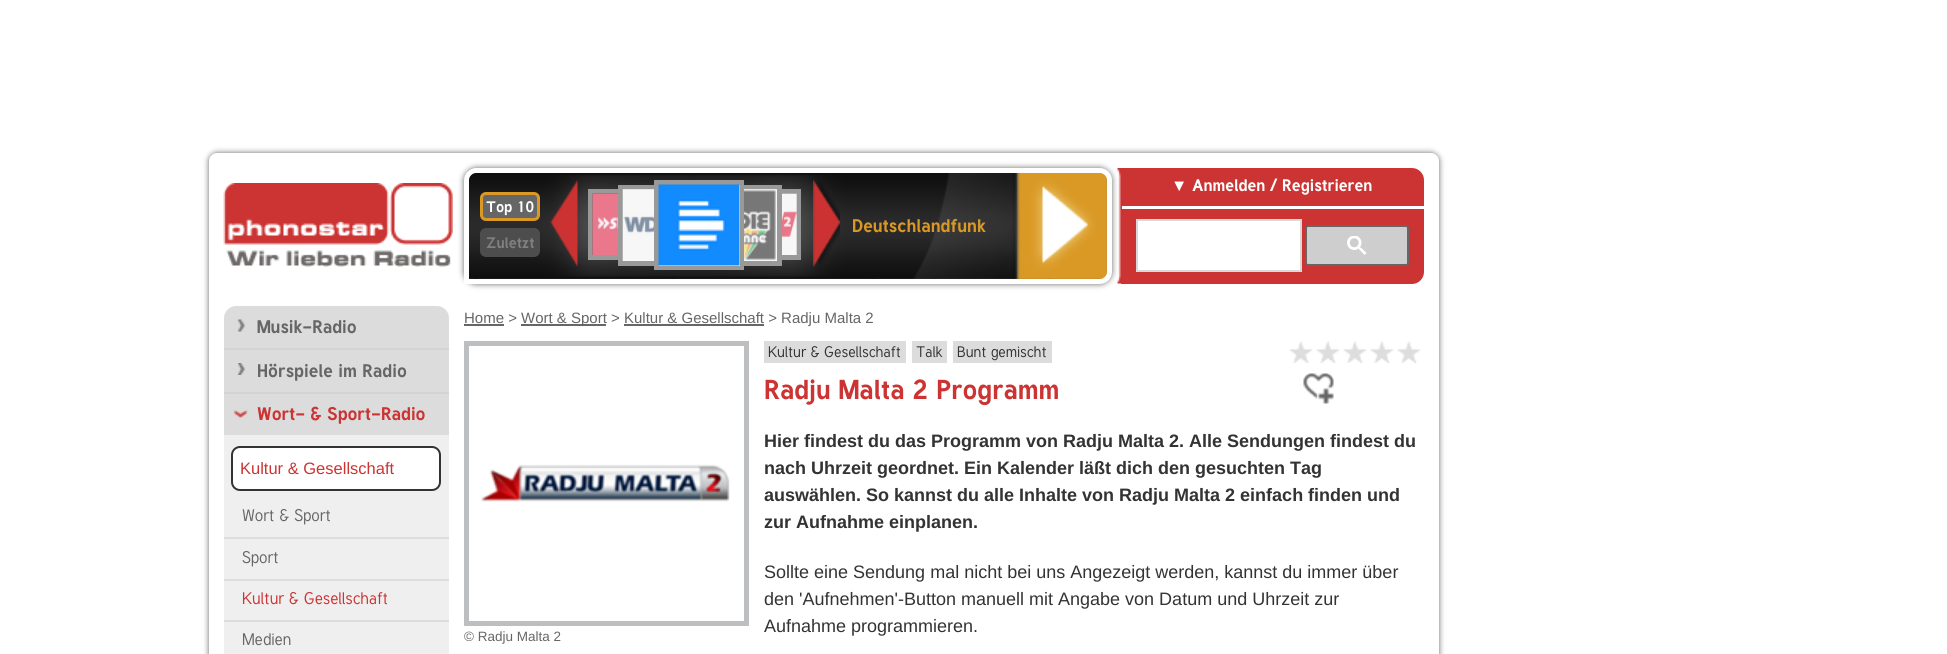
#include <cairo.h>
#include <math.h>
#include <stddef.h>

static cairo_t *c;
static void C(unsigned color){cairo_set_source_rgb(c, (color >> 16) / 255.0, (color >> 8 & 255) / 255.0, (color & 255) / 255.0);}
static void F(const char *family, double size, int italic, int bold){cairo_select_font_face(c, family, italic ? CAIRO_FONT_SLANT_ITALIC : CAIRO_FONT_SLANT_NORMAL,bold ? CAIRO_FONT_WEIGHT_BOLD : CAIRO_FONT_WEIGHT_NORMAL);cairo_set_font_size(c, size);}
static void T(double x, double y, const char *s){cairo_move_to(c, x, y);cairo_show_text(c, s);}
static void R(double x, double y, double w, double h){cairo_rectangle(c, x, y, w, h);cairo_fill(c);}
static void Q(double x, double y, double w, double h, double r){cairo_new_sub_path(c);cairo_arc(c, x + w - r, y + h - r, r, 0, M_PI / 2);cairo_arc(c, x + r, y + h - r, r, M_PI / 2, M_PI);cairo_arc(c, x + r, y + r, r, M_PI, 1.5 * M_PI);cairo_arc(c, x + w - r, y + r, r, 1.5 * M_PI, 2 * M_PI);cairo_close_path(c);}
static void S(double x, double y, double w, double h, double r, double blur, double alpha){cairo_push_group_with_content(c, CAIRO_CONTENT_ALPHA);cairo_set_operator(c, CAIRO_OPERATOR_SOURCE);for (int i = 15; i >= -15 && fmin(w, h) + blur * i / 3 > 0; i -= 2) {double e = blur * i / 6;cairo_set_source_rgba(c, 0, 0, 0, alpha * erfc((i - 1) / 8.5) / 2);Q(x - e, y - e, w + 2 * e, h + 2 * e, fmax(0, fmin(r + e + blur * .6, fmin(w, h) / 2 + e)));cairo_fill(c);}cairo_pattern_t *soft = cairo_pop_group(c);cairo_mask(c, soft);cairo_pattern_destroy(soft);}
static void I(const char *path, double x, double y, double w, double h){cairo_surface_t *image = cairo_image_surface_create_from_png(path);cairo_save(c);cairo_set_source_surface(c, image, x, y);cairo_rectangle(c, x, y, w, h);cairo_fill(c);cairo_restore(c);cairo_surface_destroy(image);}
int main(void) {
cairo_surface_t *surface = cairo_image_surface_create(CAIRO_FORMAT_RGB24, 1947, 654);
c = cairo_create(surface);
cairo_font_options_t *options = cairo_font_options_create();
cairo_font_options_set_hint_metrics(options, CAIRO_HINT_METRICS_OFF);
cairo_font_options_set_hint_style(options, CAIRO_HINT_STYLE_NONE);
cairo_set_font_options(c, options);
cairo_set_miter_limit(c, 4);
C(0xffffff);
cairo_paint(c);
C(0x666666);
S(209,153,1230,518,8,3,1);
C(0xffffff);
Q(209,153,1230,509,8);
cairo_fill(c);
I("1.png",223,183,230,84);
C(0x666666);
S(464,168,648,116,12,3,1);
I("2.png",468,168,639,111);
cairo_new_path(c);
cairo_move_to(c,476,170.5);
cairo_line_to(c,1100,170.5);
cairo_curve_to(c,1105,170.5,1109.5,175,1109.5,180);
cairo_line_to(c,1109.5,272);
cairo_curve_to(c,1109.5,277,1105,281.5,1100,281.5);
cairo_line_to(c,466.5,281.5);
cairo_line_to(c,466.5,180);
cairo_curve_to(c,466.5,175,471,170.5,476,170.5);
cairo_close_path(c);
C(0xffffff);
cairo_set_line_width(c,5);
cairo_stroke(c);
C(0x666666);
Q(481.5,193.5,57,26,4.5);
cairo_fill_preserve(c);
C(0xda9925);
cairo_set_line_width(c,3);
cairo_stroke(c);
F("Tuffy",15,0,1);
C(0xffffff);
T(486,212,"Top 10");
C(0x4d4d4d);
Q(481.5,229.5,57,26,4.5);
cairo_fill_preserve(c);
cairo_stroke(c);
C(0x808080);
T(486,248,"Zuletzt");
I("3.png",550,180,28,87);
cairo_rectangle(c,590.5,191.5,66,66);
C(0x999999);
cairo_set_line_width(c,5);
cairo_stroke(c);
C(0xdcdcdc);
R(623,190,31,71);
cairo_rectangle(c,620.5,187.5,76,76);
C(0x999999);
cairo_stroke(c);
C(0xdcdcdc);
R(782,194,14,61);
cairo_rectangle(c,733.5,191.5,65,66);
C(0x999999);
cairo_stroke(c);
C(0xdcdcdc);
R(744,190,33,71);
cairo_rectangle(c,703.5,187.5,76,76);
C(0x999999);
cairo_stroke(c);
cairo_rectangle(c,656.5,182.5,85,85);
cairo_stroke(c);
C(0xffffff);
R(659,185,81,81);
I("4.png",658,184,82,82);
cairo_set_source_rgba(c,1,1,1,0.5);
R(623,189,31,72);
I("5.png",622,189,32,72);
R(744,189,33,72);
I("6.png",744,189,33,72);
C(0xeeeeee);
R(593,194,25,61);
I("7.png",592,193,26,62);
cairo_set_source_rgba(c,1,1,1,0.5);
R(782,194,15,61);
I("8.png",782,193,15,62);
I("9.png",813,180,27,88);
F("Tuffy",18,0,1);
C(0xda9925);
T(852,232,"Deutschlandfunk");
C(0xcc3333);
cairo_new_path(c);
cairo_move_to(c,1121,168);
cairo_line_to(c,1412,168);
cairo_curve_to(c,1418.5,168,1424,173.5,1424,180);
cairo_line_to(c,1424,272);
cairo_curve_to(c,1424,278.5,1418.5,284,1412,284);
cairo_line_to(c,1121,284);
cairo_close_path(c);
cairo_fill(c);
C(0xffffff);
R(1121,206,303,3);
I("10.png",1117,168,5,116);
F("Liberation Sans",16.5,0,0);
T(1171,191,"▼");
F("Tuffy",16.5,0,1);
T(1192,191,"Anmelden / Registrieren");
cairo_rectangle(c,1137,220,164,51);
cairo_fill_preserve(c);
C(0xd9d9d9);
cairo_set_line_width(c,2);
cairo_stroke(c);
C(0xcecece);
Q(1306,226,102,39,2);
cairo_fill_preserve(c);
C(0x666666);
cairo_stroke(c);
I("11.png",1347,236,20,19);
C(0xdcdcdc);
cairo_new_path(c);
cairo_move_to(c,236,306);
cairo_line_to(c,437,306);
cairo_curve_to(c,443.5,306,449,311.5,449,318);
cairo_line_to(c,449,654);
cairo_curve_to(c,449,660.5,443.5,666,437,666);
cairo_line_to(c,224,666);
cairo_line_to(c,224,318);
cairo_curve_to(c,224,311.5,229.5,306,236,306);
cairo_close_path(c);
cairo_fill(c);
C(0xd3d3d3);
R(224,348,225,2);
I("12.png",237,319,8,13);
F("Tuffy",18,0,1);
C(0x666666);
T(257,333,"Musik-Radio");
C(0xd3d3d3);
R(224,392,225,2);
I("13.png",237,363,8,12);
C(0x666666);
T(257,377,"Hörspiele im Radio");
I("14.png",234,409,14,10);
C(0xcc3333);
T(257,420,"Wort- & Sport-Radio");
C(0xefefef);
R(224,435,225,219);
C(0xdcdcdc);
R(224,537,225,2);
C(0xffffff);
Q(232,447,208,43,8);
cairo_fill_preserve(c);
C(0x333333);
cairo_stroke(c);
F("Liberation Sans",16.5,0,0);
C(0xcc3333);
T(240,474,"Kultur & Gesellschaft");
F("Tuffy",16.5,0,0);
C(0x666666);
T(242,521,"Wort & Sport");
C(0xdcdcdc);
R(224,579,225,2);
C(0x666666);
T(242,563,"Sport");
C(0xdcdcdc);
R(224,620,225,2);
C(0xcc3333);
T(242,604,"Kultur & Gesellschaft");
C(0x666666);
T(242,645,"Medien");
F("Liberation Sans",15,0,0);
T(464,323,"Home >");
R(464,324,40,2);
R(521,324,85,2);
T(521,323,"Wort & Sport > Kultur & Gesellschaft > Radju Malta 2");
R(624,324,140,2);
C(0xdcdcdc);
R(764,341,142,22);
F("Tuffy",15,0,0);
C(0x333333);
T(768,357,"Kultur & Gesellschaft");
C(0xdcdcdc);
R(912,341,35,22);
C(0x333333);
T(916,357,"Talk");
C(0xdcdcdc);
R(953,341,99,22);
C(0x333333);
T(957,357,"Bunt gemischt");
F("Tuffy",27,0,1);
C(0xcc3333);
T(764,399,"Radju Malta 2 Programm");
I("15.png",1289,341,24,22);
I("15.png",1316,341,24,22);
I("15.png",1343,341,24,22);
I("15.png",1370,341,24,22);
I("15.png",1397,341,24,22);
I("16.png",1303,373,31,31);
F("Liberation Sans",18,0,1);
C(0x333333);
T(764,447,"Hier findest du das Programm von Radju Malta 2. Alle Sendungen findest du");
T(764,474,"nach Uhrzeit geordnet. Ein Kalender läßt dich den gesuchten Tag");
T(764,501,"auswählen. So kannst du alle Inhalte von Radju Malta 2 einfach finden und");
T(764,528,"zur Aufnahme einplanen.");
F("Liberation Sans",18,0,0);
T(764,578,"Sollte eine Sendung mal nicht bei uns Angezeigt werden, kannst du immer über");
T(764,605,"den 'Aufnehmen'-Button manuell mit Angabe von Datum und Uhrzeit zur");
T(764,632,"Aufnahme programmieren.");
cairo_rectangle(c,466.5,343.5,280,280);
C(0xbcbec0);
cairo_set_line_width(c,5);
cairo_stroke(c);
I("17.png",481,464,249,38);
F("Liberation Sans",13.5,0,0);
C(0x666666);
T(464,641,"© Radju Malta 2");
cairo_surface_write_to_png(surface, "o.png");
cairo_font_options_destroy(options);
cairo_destroy(c);
cairo_surface_destroy(surface);
return 0;
}
